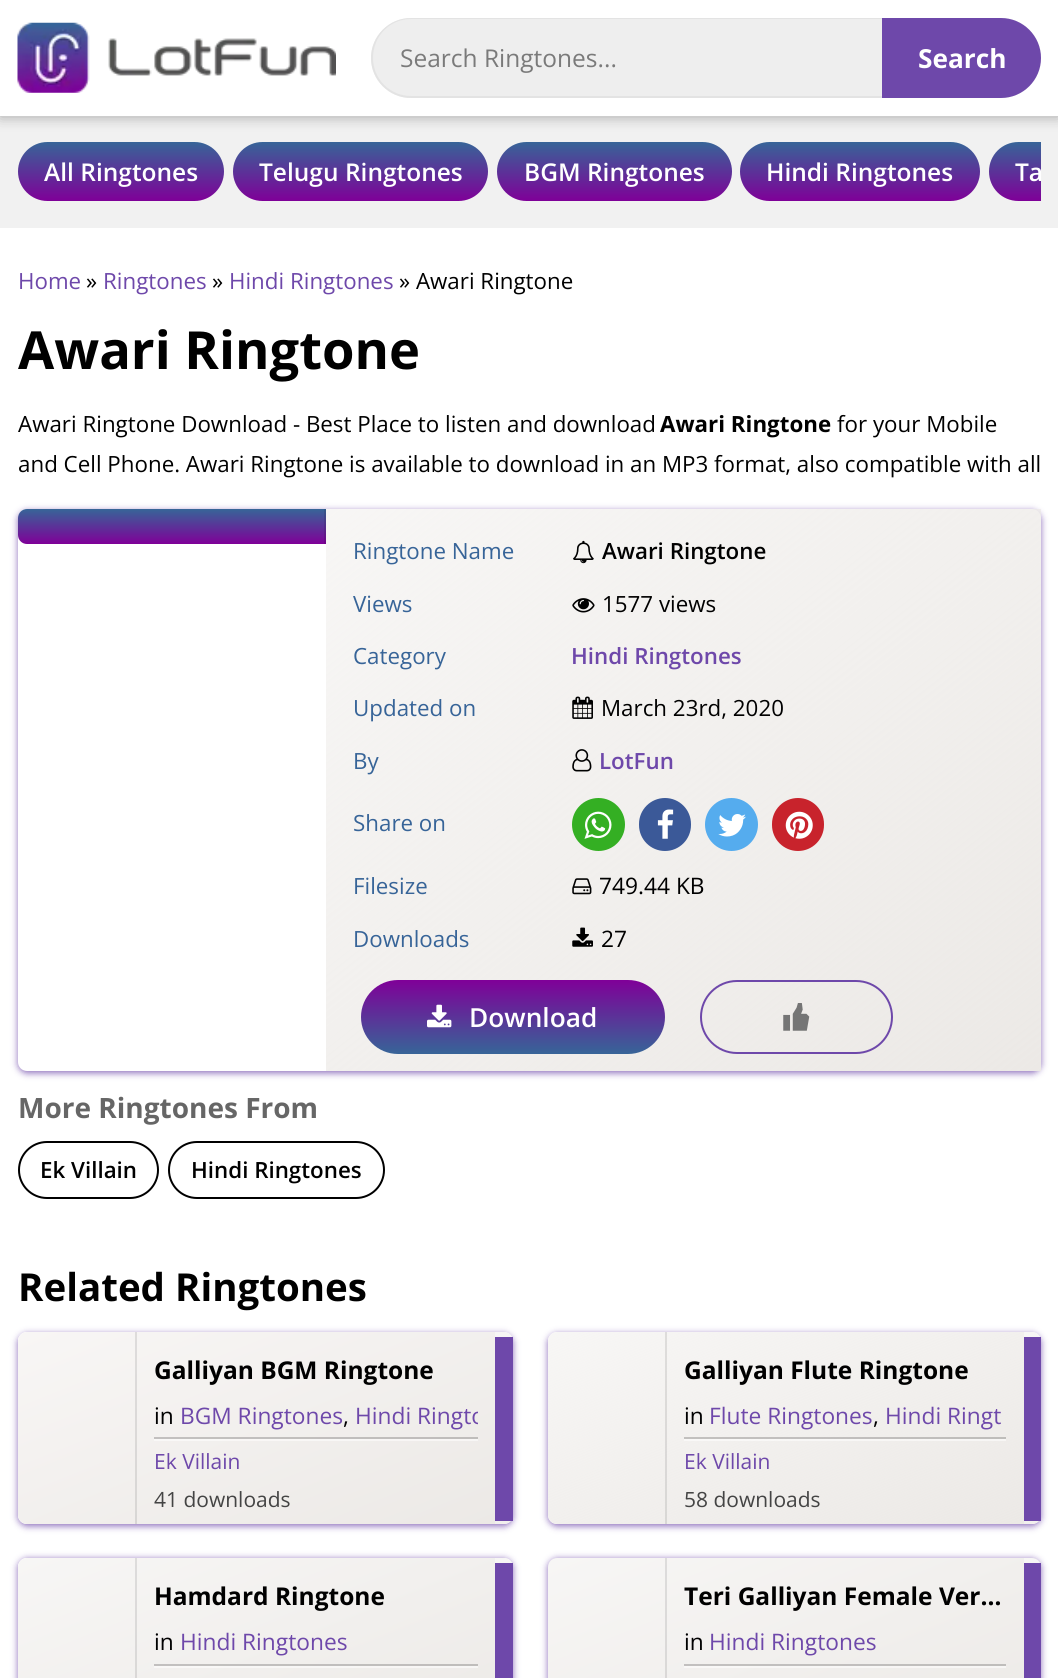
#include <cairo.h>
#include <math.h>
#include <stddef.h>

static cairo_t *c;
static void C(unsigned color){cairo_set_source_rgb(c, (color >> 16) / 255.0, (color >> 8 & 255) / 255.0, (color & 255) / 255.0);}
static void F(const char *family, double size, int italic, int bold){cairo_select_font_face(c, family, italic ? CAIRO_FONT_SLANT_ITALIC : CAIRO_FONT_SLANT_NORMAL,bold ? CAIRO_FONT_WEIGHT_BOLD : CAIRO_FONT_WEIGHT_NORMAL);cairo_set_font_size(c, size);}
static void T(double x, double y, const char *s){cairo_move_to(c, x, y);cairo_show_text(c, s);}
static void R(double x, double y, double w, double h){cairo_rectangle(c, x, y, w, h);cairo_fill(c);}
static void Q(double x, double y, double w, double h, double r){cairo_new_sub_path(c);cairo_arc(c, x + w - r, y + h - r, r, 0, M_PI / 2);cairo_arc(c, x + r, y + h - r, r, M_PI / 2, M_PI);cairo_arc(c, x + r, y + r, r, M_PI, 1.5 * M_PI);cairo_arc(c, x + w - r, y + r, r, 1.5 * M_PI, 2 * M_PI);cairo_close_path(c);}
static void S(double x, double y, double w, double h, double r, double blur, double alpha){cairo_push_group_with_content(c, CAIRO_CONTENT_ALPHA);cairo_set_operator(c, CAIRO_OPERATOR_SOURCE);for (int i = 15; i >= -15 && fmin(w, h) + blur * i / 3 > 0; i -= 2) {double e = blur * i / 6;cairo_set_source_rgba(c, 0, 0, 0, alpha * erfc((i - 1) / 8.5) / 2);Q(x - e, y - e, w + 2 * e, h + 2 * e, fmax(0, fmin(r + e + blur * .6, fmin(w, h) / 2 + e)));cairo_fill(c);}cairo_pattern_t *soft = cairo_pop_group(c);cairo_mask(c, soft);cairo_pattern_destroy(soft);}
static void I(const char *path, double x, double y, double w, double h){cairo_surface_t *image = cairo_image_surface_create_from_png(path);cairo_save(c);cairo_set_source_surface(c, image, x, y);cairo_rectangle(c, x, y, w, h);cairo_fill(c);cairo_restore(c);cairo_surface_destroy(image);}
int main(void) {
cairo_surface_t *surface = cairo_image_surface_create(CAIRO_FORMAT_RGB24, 1058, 1678);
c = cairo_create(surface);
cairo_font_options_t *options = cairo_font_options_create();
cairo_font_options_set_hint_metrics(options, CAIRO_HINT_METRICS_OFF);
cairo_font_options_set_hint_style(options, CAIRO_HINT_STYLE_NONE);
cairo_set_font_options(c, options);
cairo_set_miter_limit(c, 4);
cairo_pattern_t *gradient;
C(0xffffff);
cairo_paint(c);
C(0xf1f1f1);
R(0,116,1058,112);
C(0x000000);
S(0,2,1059,115,0,7,.3);
C(0xffffff);
R(0,0,1058,116);
I("1.png",17,22,319,71);
C(0xeeeeee);
Q(371,18,670,80,40);
cairo_fill(c);
C(0xe3e3e3);
cairo_set_fill_rule(c,CAIRO_FILL_RULE_EVEN_ODD);
cairo_new_path(c);
cairo_move_to(c,411,18);
cairo_line_to(c,882,18);
cairo_line_to(c,882,98);
cairo_line_to(c,411,98);
cairo_curve_to(c,389,98,371,80,371,58);
cairo_curve_to(c,371,36,389,18,411,18);
cairo_close_path(c);
cairo_move_to(c,411,19);
cairo_line_to(c,882,19);
cairo_line_to(c,882,96);
cairo_line_to(c,411,96);
cairo_curve_to(c,390,96,373,79,373,58);
cairo_curve_to(c,373,36,390,19,411,19);
cairo_close_path(c);
cairo_fill(c);
F("Open Sans",24.5,0,0);
C(0x7a7a7a);
T(400,67,"Search Ringtones...");
C(0x6e48aa);
cairo_new_path(c);
cairo_move_to(c,882,18);
cairo_line_to(c,1001,18);
cairo_curve_to(c,1023,18,1041,36,1041,58);
cairo_curve_to(c,1041,80,1023,98,1001,98);
cairo_line_to(c,882,98);
cairo_close_path(c);
cairo_fill(c);
F("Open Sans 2",26.25,0,1);
C(0xffffff);
T(918,68,"Search");
gradient = cairo_pattern_create_linear(121,142,121,201);
cairo_pattern_add_color_stop_rgba(gradient,0,0.216,0.396,0.596,1);
cairo_pattern_add_color_stop_rgba(gradient,1,0.498,0,0.596,1);
cairo_set_source(c,gradient);
cairo_pattern_destroy(gradient);
Q(18,142,206,59,29.5);
cairo_fill(c);
F("Open Sans SemiBold",24.5,0,0);
C(0xffffff);
T(44,181,"All Ringtones");
gradient = cairo_pattern_create_linear(361,142,361,201);
cairo_pattern_add_color_stop_rgba(gradient,0,0.216,0.396,0.596,1);
cairo_pattern_add_color_stop_rgba(gradient,1,0.498,0,0.596,1);
cairo_set_source(c,gradient);
cairo_pattern_destroy(gradient);
Q(233,142,255,59,29.5);
cairo_fill(c);
C(0xffffff);
T(259,181,"Telugu Ringtones");
gradient = cairo_pattern_create_linear(614,142,614,201);
cairo_pattern_add_color_stop_rgba(gradient,0,0.216,0.396,0.596,1);
cairo_pattern_add_color_stop_rgba(gradient,1,0.498,0,0.596,1);
cairo_set_source(c,gradient);
cairo_pattern_destroy(gradient);
Q(497,142,235,59,29.5);
cairo_fill(c);
C(0xffffff);
T(524,181,"BGM Ringtones");
gradient = cairo_pattern_create_linear(860,142,860,201);
cairo_pattern_add_color_stop_rgba(gradient,0,0.216,0.396,0.596,1);
cairo_pattern_add_color_stop_rgba(gradient,1,0.498,0,0.596,1);
cairo_set_source(c,gradient);
cairo_pattern_destroy(gradient);
Q(740,142,240,59,29.5);
cairo_fill(c);
C(0xffffff);
T(766,181,"Hindi Ringtones");
gradient = cairo_pattern_create_linear(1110,142,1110,201);
cairo_pattern_add_color_stop_rgba(gradient,0,0.216,0.396,0.596,1);
cairo_pattern_add_color_stop_rgba(gradient,1,0.498,0,0.596,1);
cairo_set_source(c,gradient);
cairo_pattern_destroy(gradient);
cairo_new_path(c);
cairo_move_to(c,1018.5,142);
cairo_line_to(c,1041,142);
cairo_line_to(c,1041,201);
cairo_line_to(c,1018.5,201);
cairo_curve_to(c,1002,201,989,188,989,171.5);
cairo_curve_to(c,989,155,1002,142,1018.5,142);
cairo_close_path(c);
cairo_fill(c);
C(0xffffff);
T(1015,181,"Ta");
F("Open Sans",22.35,0,0);
C(0x6e48aa);
T(18,289,"Home");
C(0x000000);
T(86,289,"»");
C(0x6e48aa);
T(103,289,"Ringtones");
C(0x000000);
T(212,289,"»");
C(0x6e48aa);
T(229,289,"Hindi Ringtones");
C(0x000000);
T(399,289,"» Awari Ringtone");
F("Open Sans",52.5,0,1);
T(18,369,"Awari Ringtone");
F("Open Sans",22.35,0,0);
T(18,432,"Awari Ringtone Download - Best Place to listen and download");
F("Open Sans 2",22.35,0,1);
T(660,432,"Awari Ringtone");
F("Open Sans",22.35,0,0);
T(837,432,"for your Mobile");
T(18,472,"and Cell Phone. Awari Ringtone is available to download in an MP3 format, also compatible with all");
C(0x6e48aa);
S(18,511,1023,562,9,3.5,.8);
C(0xffffff);
Q(18,509,1023,562,9);
cairo_fill(c);
gradient = cairo_pattern_create_linear(171,509,171,544);
cairo_pattern_add_color_stop_rgba(gradient,0,0.216,0.396,0.596,1);
cairo_pattern_add_color_stop_rgba(gradient,1,0.498,0,0.596,1);
cairo_set_source(c,gradient);
cairo_pattern_destroy(gradient);
cairo_new_path(c);
cairo_move_to(c,27,509);
cairo_line_to(c,326,509);
cairo_line_to(c,326,544);
cairo_line_to(c,27,544);
cairo_curve_to(c,22,544,18,540,18,535);
cairo_line_to(c,18,518);
cairo_curve_to(c,18,513,22,509,27,509);
cairo_close_path(c);
cairo_fill(c);
cairo_set_source_rgba(c,0,0,0,0.1);
R(324,509,2,35);
gradient = cairo_pattern_create_linear(411,443,956,1138);
cairo_pattern_add_color_stop_rgba(gradient,0,0.925,0.914,0.902,.4);
cairo_pattern_add_color_stop_rgba(gradient,1,0.925,0.914,0.902,1);
cairo_set_source(c,gradient);
cairo_pattern_destroy(gradient);
R(326,509,715,562);
C(0x376498);
T(353,559,"Ringtone Name");
I("2.png",573,540,21,24);
F("Open Sans 2 SemiBold",22.35,0,0);
C(0x000000);
T(602,559,"Awari Ringtone");
F("Open Sans",22.35,0,0);
C(0x376498);
T(353,612,"Views");
I("3.png",572,598,23,15);
C(0x000000);
T(602,612,"1577 views");
C(0x376498);
T(353,664,"Category");
F("Open Sans SemiBold",22.35,0,0);
C(0x6e48aa);
T(571,664,"Hindi Ringtones");
F("Open Sans",22.35,0,0);
C(0x376498);
T(353,716,"Updated on");
I("4.png",572,696,21,23);
C(0x000000);
T(601,716,"March 23rd, 2020");
C(0x376498);
T(353,769,"By");
I("5.png",572,749,20,23);
F("Open Sans SemiBold",22.35,0,0);
C(0x6e48aa);
T(599,769,"LotFun");
F("Open Sans",22.35,0,0);
C(0x376498);
T(353,831,"Share on");
C(0x34af23);
cairo_new_path(c);
cairo_arc(c,598.5,824.5,26.5,0,2 * M_PI);
cairo_fill(c);
I("6.png",584,811,28,28);
C(0x3b5998);
Q(639,798,52,53,26);
cairo_fill(c);
I("7.png",657,809,17,30);
C(0x55acee);
cairo_arc(c,731.5,824.5,26.5,0,2 * M_PI);
cairo_fill(c);
I("8.png",718,814,28,23);
C(0xc8232c);
Q(772,798,52,53,26);
cairo_fill(c);
I("9.png",785,811,28,28);
C(0x376498);
T(353,894,"Filesize");
I("10.png",572,878,20,17);
F("Open Sans",22.75,0,0);
C(0x000000);
T(599,894,"749.44 KB");
F("Open Sans",22.35,0,0);
C(0x376498);
T(353,947,"Downloads");
I("11.png",572,927,21,20);
F("Open Sans",22.75,0,0);
C(0x000000);
T(601,947,"27");
gradient = cairo_pattern_create_linear(513,1054,513,980);
cairo_pattern_add_color_stop_rgba(gradient,0,0.216,0.396,0.596,1);
cairo_pattern_add_color_stop_rgba(gradient,1,0.498,0,0.596,1);
cairo_set_source(c,gradient);
cairo_pattern_destroy(gradient);
Q(361,980,304,74,37);
cairo_fill(c);
I("12.png",427,1004,25,24);
F("Open Sans 2 SemiBold",26.25,0,0);
C(0xffffff);
T(469,1027,"Download");
Q(701,981,191,72,36);
C(0x6e48aa);
cairo_stroke(c);
I("13.png",783,1003,27,28);
F("Open Sans",28,0,1);
C(0x666666);
T(18,1118,"More Ringtones From");
Q(19,1142,139,56,28);
C(0x000000);
cairo_stroke(c);
F("Open Sans SemiBold",22.35,0,0);
T(40,1178,"Ek Villain");
Q(169,1142,215,56,28);
cairo_stroke(c);
T(191,1178,"Hindi Ringtones");
F("Open Sans",38.5,0,1);
T(18,1301,"Related Ringtones");
cairo_save(c);
cairo_new_path(c);
cairo_move_to(c,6,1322);
cairo_line_to(c,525,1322);
cairo_line_to(c,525,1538);
cairo_line_to(c,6,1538);
cairo_close_path(c);
cairo_move_to(c,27,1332);
cairo_line_to(c,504,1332);
cairo_curve_to(c,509,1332,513,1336,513,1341);
cairo_line_to(c,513,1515);
cairo_curve_to(c,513,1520,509,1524,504,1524);
cairo_line_to(c,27,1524);
cairo_curve_to(c,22,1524,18,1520,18,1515);
cairo_line_to(c,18,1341);
cairo_curve_to(c,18,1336,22,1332,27,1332);
cairo_close_path(c);
cairo_clip(c);
C(0x6e48aa);
S(18,1334,495,192,9,3.5,.8);
cairo_restore(c);
gradient = cairo_pattern_create_linear(190,1262,323,1594);
cairo_pattern_add_color_stop_rgba(gradient,0,0.973,0.965,0.961,1);
cairo_pattern_add_color_stop_rgba(gradient,1,0.925,0.914,0.902,1);
cairo_set_source(c,gradient);
cairo_pattern_destroy(gradient);
cairo_new_path(c);
cairo_move_to(c,27,1332);
cairo_line_to(c,495,1332);
cairo_line_to(c,495,1524);
cairo_line_to(c,27,1524);
cairo_curve_to(c,22,1524,18,1520,18,1515);
cairo_line_to(c,18,1341);
cairo_curve_to(c,18,1336,22,1332,27,1332);
cairo_close_path(c);
cairo_fill(c);
gradient = cairo_pattern_create_linear(190,1262,323,1594);
cairo_pattern_add_color_stop_rgba(gradient,0,0.776,0.773,0.769,1);
cairo_pattern_add_color_stop_rgba(gradient,1,0.741,0.729,0.722,1);
cairo_set_source(c,gradient);
cairo_pattern_destroy(gradient);
R(154,1437,324,2);
gradient = cairo_pattern_create_linear(190,1262,323,1594);
cairo_pattern_add_color_stop_rgba(gradient,0,0.988,0.984,0.98,1);
cairo_pattern_add_color_stop_rgba(gradient,1,0.965,0.957,0.953,1);
cairo_set_source(c,gradient);
cairo_pattern_destroy(gradient);
R(154,1439,324,2);
gradient = cairo_pattern_create_linear(190,1262,323,1594);
cairo_pattern_add_color_stop_rgba(gradient,0,0.875,0.867,0.867,1);
cairo_pattern_add_color_stop_rgba(gradient,1,0.831,0.824,0.812,1);
cairo_set_source(c,gradient);
cairo_pattern_destroy(gradient);
R(135,1332,2,192);
gradient = cairo_pattern_create_linear(667,1262,801,1594);
cairo_pattern_add_color_stop_rgba(gradient,0,0.925,0.914,0.902,.4);
cairo_pattern_add_color_stop_rgba(gradient,1,0.925,0.914,0.902,1);
cairo_set_source(c,gradient);
cairo_pattern_destroy(gradient);
cairo_new_path(c);
cairo_move_to(c,495,1332);
cairo_line_to(c,504,1332);
cairo_curve_to(c,509,1332,513,1336,513,1341);
cairo_line_to(c,513,1515);
cairo_curve_to(c,513,1520,509,1524,504,1524);
cairo_line_to(c,495,1524);
cairo_close_path(c);
cairo_fill(c);
C(0x6e48aa);
R(495,1337,18,184);
F("Open Sans",24.5,0,1);
C(0x000000);
T(154,1379,"Galliyan BGM Ringtone");
F("Open Sans",22.75,0,0);
T(154,1424,"in");
C(0x6e48aa);
T(180,1424,"BGM Ringtones");
C(0x000000);
T(343,1424,",");
cairo_save(c);
cairo_set_fill_rule(c,CAIRO_FILL_RULE_WINDING);
cairo_rectangle(c,154,1400,324,33);
cairo_clip(c);
C(0x6e48aa);
T(355,1424,"Hindi Ringto");
cairo_restore(c);
F("Open Sans",21,0,0);
C(0x6e48aa);
T(154,1469,"Ek Villain");
C(0x444444);
T(154,1507,"41 downloads");
cairo_save(c);
cairo_new_path(c);
cairo_move_to(c,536,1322);
cairo_line_to(c,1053,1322);
cairo_line_to(c,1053,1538);
cairo_line_to(c,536,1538);
cairo_close_path(c);
cairo_move_to(c,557,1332);
cairo_line_to(c,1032,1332);
cairo_curve_to(c,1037,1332,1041,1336,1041,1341);
cairo_line_to(c,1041,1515);
cairo_curve_to(c,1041,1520,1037,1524,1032,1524);
cairo_line_to(c,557,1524);
cairo_curve_to(c,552,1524,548,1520,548,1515);
cairo_line_to(c,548,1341);
cairo_curve_to(c,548,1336,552,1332,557,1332);
cairo_close_path(c);
cairo_clip(c);
C(0x6e48aa);
S(548,1334,493,192,9,3.5,.8);
cairo_restore(c);
gradient = cairo_pattern_create_linear(719,1263,853,1593);
cairo_pattern_add_color_stop_rgba(gradient,0,0.925,0.914,0.902,.4);
cairo_pattern_add_color_stop_rgba(gradient,1,0.925,0.914,0.902,1);
cairo_set_source(c,gradient);
cairo_pattern_destroy(gradient);
cairo_new_path(c);
cairo_move_to(c,557,1332);
cairo_line_to(c,1024,1332);
cairo_line_to(c,1024,1524);
cairo_line_to(c,557,1524);
cairo_curve_to(c,552,1524,548,1520,548,1515);
cairo_line_to(c,548,1341);
cairo_curve_to(c,548,1336,552,1332,557,1332);
cairo_close_path(c);
cairo_fill(c);
gradient = cairo_pattern_create_linear(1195,1263,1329,1593);
cairo_pattern_add_color_stop_rgba(gradient,0,0.925,0.914,0.902,.4);
cairo_pattern_add_color_stop_rgba(gradient,1,0.925,0.914,0.902,1);
cairo_set_source(c,gradient);
cairo_pattern_destroy(gradient);
cairo_new_path(c);
cairo_move_to(c,1024,1332);
cairo_line_to(c,1032,1332);
cairo_curve_to(c,1037,1332,1041,1336,1041,1341);
cairo_line_to(c,1041,1515);
cairo_curve_to(c,1041,1520,1037,1524,1032,1524);
cairo_line_to(c,1024,1524);
cairo_close_path(c);
cairo_fill(c);
C(0x6e48aa);
R(1024,1337,17,184);
cairo_set_source_rgba(c,0,0,0,0.1);
R(665,1332,2,192);
F("Open Sans",24.5,0,1);
C(0x000000);
T(684,1379,"Galliyan Flute Ringtone");
F("Open Sans",22.75,0,0);
T(684,1424,"in");
C(0x6e48aa);
T(709,1424,"Flute Ringtones");
C(0x000000);
T(873,1424,",");
C(0x6e48aa);
T(885,1424,"Hindi Ringt");
cairo_set_source_rgba(c,1,1,1,0.5);
R(684,1439,322,2);
cairo_set_source_rgba(c,0,0,0,0.2);
R(684,1437,322,2);
F("Open Sans",21,0,0);
C(0x6e48aa);
T(684,1469,"Ek Villain");
C(0x444444);
T(684,1507,"58 downloads");
cairo_save(c);
cairo_new_path(c);
cairo_move_to(c,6,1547);
cairo_line_to(c,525,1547);
cairo_line_to(c,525,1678);
cairo_line_to(c,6,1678);
cairo_close_path(c);
cairo_move_to(c,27,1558);
cairo_line_to(c,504,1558);
cairo_curve_to(c,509,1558,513,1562,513,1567);
cairo_line_to(c,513,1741);
cairo_curve_to(c,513,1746,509,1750,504,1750);
cairo_line_to(c,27,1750);
cairo_curve_to(c,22,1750,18,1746,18,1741);
cairo_line_to(c,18,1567);
cairo_curve_to(c,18,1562,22,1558,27,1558);
cairo_close_path(c);
cairo_clip(c);
C(0x6e48aa);
S(18,1559,495,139,9,3.5,.8);
cairo_restore(c);
gradient = cairo_pattern_create_linear(190,1488,323,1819);
cairo_pattern_add_color_stop_rgba(gradient,0,0.969,0.965,0.961,1);
cairo_pattern_add_color_stop_rgba(gradient,1,0.925,0.914,0.902,1);
cairo_set_source(c,gradient);
cairo_pattern_destroy(gradient);
cairo_new_path(c);
cairo_move_to(c,27,1558);
cairo_line_to(c,495,1558);
cairo_line_to(c,495,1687);
cairo_line_to(c,27,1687);
cairo_curve_to(c,22,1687,18,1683,18,1678);
cairo_line_to(c,18,1567);
cairo_curve_to(c,18,1562,22,1558,27,1558);
cairo_close_path(c);
cairo_fill(c);
gradient = cairo_pattern_create_linear(190,1488,323,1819);
cairo_pattern_add_color_stop_rgba(gradient,0,0.776,0.773,0.769,1);
cairo_pattern_add_color_stop_rgba(gradient,1,0.741,0.729,0.722,1);
cairo_set_source(c,gradient);
cairo_pattern_destroy(gradient);
R(154,1664,324,2);
gradient = cairo_pattern_create_linear(190,1488,323,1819);
cairo_pattern_add_color_stop_rgba(gradient,0,0.984,0.984,0.98,1);
cairo_pattern_add_color_stop_rgba(gradient,1,0.965,0.957,0.953,1);
cairo_set_source(c,gradient);
cairo_pattern_destroy(gradient);
R(154,1666,324,2);
gradient = cairo_pattern_create_linear(190,1488,323,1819);
cairo_pattern_add_color_stop_rgba(gradient,0,0.871,0.867,0.867,1);
cairo_pattern_add_color_stop_rgba(gradient,1,0.831,0.824,0.812,1);
cairo_set_source(c,gradient);
cairo_pattern_destroy(gradient);
R(135,1558,2,120);
gradient = cairo_pattern_create_linear(667,1488,801,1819);
cairo_pattern_add_color_stop_rgba(gradient,0,0.925,0.914,0.902,.4);
cairo_pattern_add_color_stop_rgba(gradient,1,0.925,0.914,0.902,1);
cairo_set_source(c,gradient);
cairo_pattern_destroy(gradient);
cairo_new_path(c);
cairo_move_to(c,495,1558);
cairo_line_to(c,504,1558);
cairo_curve_to(c,509,1558,513,1562,513,1567);
cairo_line_to(c,513,1678);
cairo_curve_to(c,513,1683,509,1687,504,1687);
cairo_line_to(c,495,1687);
cairo_close_path(c);
cairo_fill(c);
C(0x6e48aa);
R(495,1563,18,115);
F("Open Sans",24.5,0,1);
C(0x000000);
T(154,1605,"Hamdard Ringtone");
F("Open Sans",22.75,0,0);
T(154,1650,"in");
C(0x6e48aa);
T(180,1650,"Hindi Ringtones");
C(0x6e48aa);
S(548,1559,493,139,9,3.5,.8);
gradient = cairo_pattern_create_linear(719,1488,853,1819);
cairo_pattern_add_color_stop_rgba(gradient,0,0.969,0.965,0.961,1);
cairo_pattern_add_color_stop_rgba(gradient,1,0.925,0.914,0.902,1);
cairo_set_source(c,gradient);
cairo_pattern_destroy(gradient);
cairo_new_path(c);
cairo_move_to(c,557,1558);
cairo_line_to(c,1024,1558);
cairo_line_to(c,1024,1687);
cairo_line_to(c,557,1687);
cairo_curve_to(c,552,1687,548,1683,548,1678);
cairo_line_to(c,548,1567);
cairo_curve_to(c,548,1562,552,1558,557,1558);
cairo_close_path(c);
cairo_fill(c);
gradient = cairo_pattern_create_linear(719,1488,853,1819);
cairo_pattern_add_color_stop_rgba(gradient,0,0.776,0.773,0.769,1);
cairo_pattern_add_color_stop_rgba(gradient,1,0.741,0.729,0.722,1);
cairo_set_source(c,gradient);
cairo_pattern_destroy(gradient);
R(684,1664,322,2);
gradient = cairo_pattern_create_linear(719,1488,853,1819);
cairo_pattern_add_color_stop_rgba(gradient,0,0.984,0.984,0.98,1);
cairo_pattern_add_color_stop_rgba(gradient,1,0.965,0.957,0.953,1);
cairo_set_source(c,gradient);
cairo_pattern_destroy(gradient);
R(684,1666,322,2);
gradient = cairo_pattern_create_linear(719,1488,853,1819);
cairo_pattern_add_color_stop_rgba(gradient,0,0.871,0.867,0.867,1);
cairo_pattern_add_color_stop_rgba(gradient,1,0.831,0.824,0.812,1);
cairo_set_source(c,gradient);
cairo_pattern_destroy(gradient);
R(665,1558,2,120);
gradient = cairo_pattern_create_linear(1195,1488,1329,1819);
cairo_pattern_add_color_stop_rgba(gradient,0,0.969,0.965,0.961,1);
cairo_pattern_add_color_stop_rgba(gradient,1,0.925,0.914,0.902,1);
cairo_set_source(c,gradient);
cairo_pattern_destroy(gradient);
cairo_new_path(c);
cairo_move_to(c,1024,1558);
cairo_line_to(c,1032,1558);
cairo_curve_to(c,1037,1558,1041,1562,1041,1567);
cairo_line_to(c,1041,1678);
cairo_curve_to(c,1041,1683,1037,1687,1032,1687);
cairo_line_to(c,1024,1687);
cairo_close_path(c);
cairo_fill(c);
C(0x6e48aa);
R(1024,1563,17,115);
F("Open Sans",24.5,0,1);
C(0x000000);
T(684,1605,"Teri Galliyan Female Ver…");
F("Open Sans",22.75,0,0);
T(684,1650,"in");
C(0x6e48aa);
T(709,1650,"Hindi Ringtones");
cairo_surface_write_to_png(surface, "o.png");
cairo_font_options_destroy(options);
cairo_destroy(c);
cairo_surface_destroy(surface);
return 0;
}
